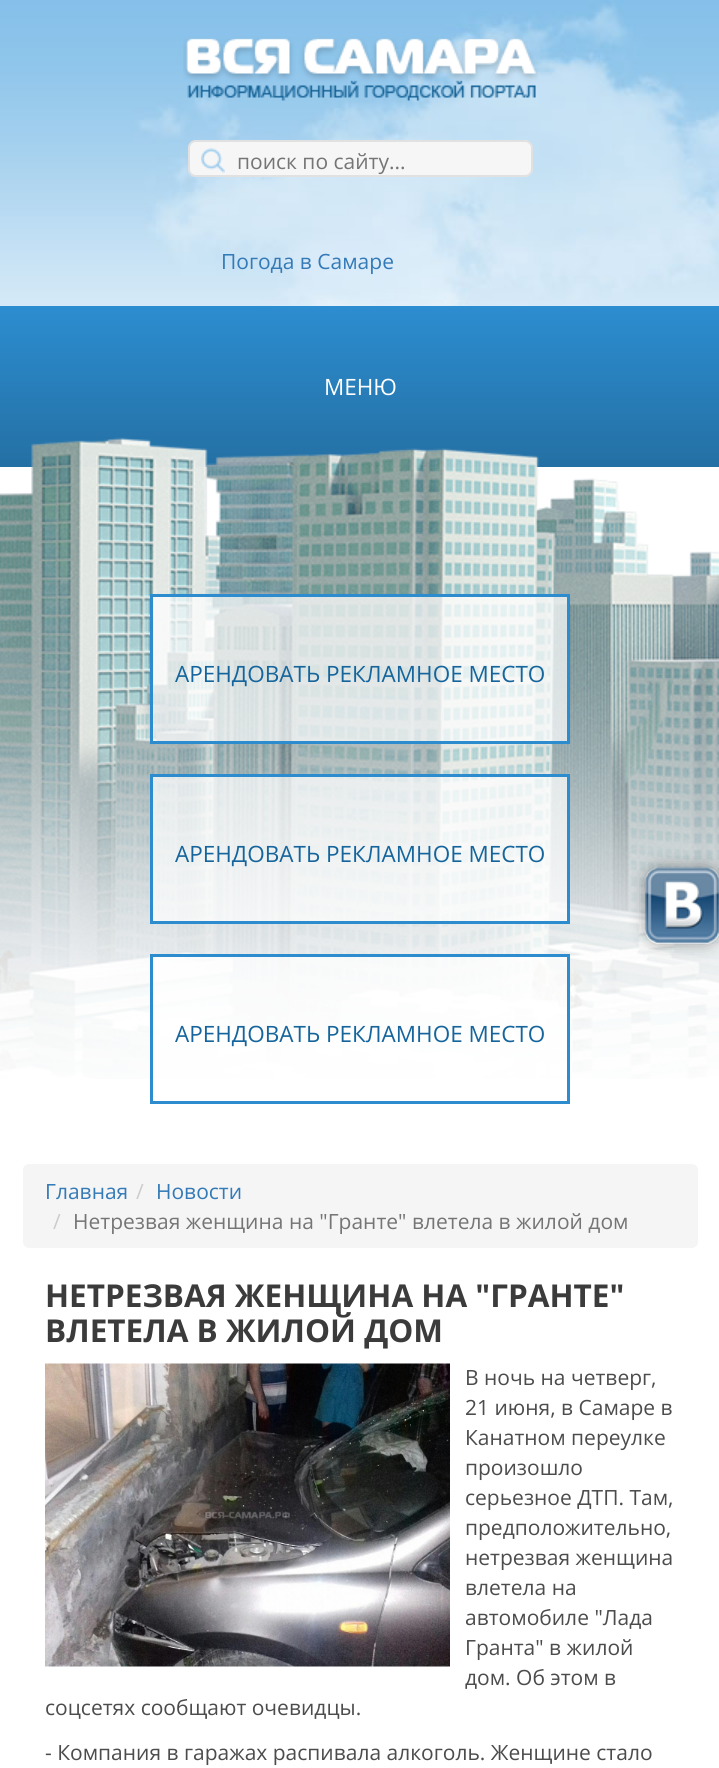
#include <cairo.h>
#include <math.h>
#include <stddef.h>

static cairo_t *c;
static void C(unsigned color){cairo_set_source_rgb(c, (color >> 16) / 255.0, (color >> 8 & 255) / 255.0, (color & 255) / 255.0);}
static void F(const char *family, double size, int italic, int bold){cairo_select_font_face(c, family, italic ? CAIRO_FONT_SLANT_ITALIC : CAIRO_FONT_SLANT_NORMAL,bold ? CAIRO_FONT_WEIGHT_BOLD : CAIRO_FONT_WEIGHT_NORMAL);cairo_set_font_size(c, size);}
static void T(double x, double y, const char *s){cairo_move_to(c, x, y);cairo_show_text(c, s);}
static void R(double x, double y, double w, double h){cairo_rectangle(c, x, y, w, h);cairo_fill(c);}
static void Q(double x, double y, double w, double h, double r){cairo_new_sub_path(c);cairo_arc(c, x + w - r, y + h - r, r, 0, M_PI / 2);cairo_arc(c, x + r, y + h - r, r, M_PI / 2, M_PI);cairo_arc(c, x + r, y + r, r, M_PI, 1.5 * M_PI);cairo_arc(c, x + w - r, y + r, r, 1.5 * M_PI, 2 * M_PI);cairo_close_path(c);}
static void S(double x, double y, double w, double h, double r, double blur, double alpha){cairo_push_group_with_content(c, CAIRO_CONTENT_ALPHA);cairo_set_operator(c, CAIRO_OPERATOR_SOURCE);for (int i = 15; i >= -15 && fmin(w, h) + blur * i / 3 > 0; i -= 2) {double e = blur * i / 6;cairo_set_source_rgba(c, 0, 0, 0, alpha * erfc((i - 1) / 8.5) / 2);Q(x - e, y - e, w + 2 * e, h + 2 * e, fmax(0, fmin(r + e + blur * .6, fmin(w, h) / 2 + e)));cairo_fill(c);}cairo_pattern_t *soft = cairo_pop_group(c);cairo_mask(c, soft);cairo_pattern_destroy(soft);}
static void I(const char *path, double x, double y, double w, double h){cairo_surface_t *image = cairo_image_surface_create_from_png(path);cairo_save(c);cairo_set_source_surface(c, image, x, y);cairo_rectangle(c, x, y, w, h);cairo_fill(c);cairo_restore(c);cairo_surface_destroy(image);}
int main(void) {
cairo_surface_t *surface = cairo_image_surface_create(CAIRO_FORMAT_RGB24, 719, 1768);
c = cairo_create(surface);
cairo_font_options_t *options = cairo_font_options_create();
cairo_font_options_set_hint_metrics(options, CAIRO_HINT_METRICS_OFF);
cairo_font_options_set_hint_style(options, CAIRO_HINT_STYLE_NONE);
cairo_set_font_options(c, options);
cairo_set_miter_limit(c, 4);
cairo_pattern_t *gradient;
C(0xffffff);
cairo_paint(c);
I("1.png",0,0,719,306);
I("2.png",183,38,355,63);
C(0xf6f6f7);
Q(188,140,345,37,8);
cairo_fill(c);
Q(189,141,343,35,7);
cairo_set_source_rgba(c,0.722,0.722,0.722,0.33);
cairo_stroke(c);
I("3.png",201,148,24,25);
F("Open Sans",21,0,0);
C(0x757575);
T(237,169,"поиск по сайту...");
C(0x337ab7);
T(221,269,"Погода в Самаре");
gradient = cairo_pattern_create_linear(360,306,360,467);
cairo_pattern_add_color_stop_rgba(gradient,0,0.173,0.553,0.816,1);
cairo_pattern_add_color_stop_rgba(gradient,1,0.141,0.439,0.643,1);
cairo_set_source(c,gradient);
cairo_pattern_destroy(gradient);
R(0,306,719,161);
F("Open Sans",22.5,0,0);
C(0xffffff);
T(324,395,"МЕНЮ");
I("4.png",0,437,719,642);
cairo_set_source_rgba(c,1,1,1,0.7);
cairo_rectangle(c,151.5,595.5,417,147);
cairo_fill_preserve(c);
C(0x2c8cce);
cairo_set_line_width(c,3);
cairo_stroke(c);
C(0x15659c);
T(175,682,"АРЕНДОВАТЬ РЕКЛАМНОЕ МЕСТО");
cairo_set_source_rgba(c,1,1,1,0.7);
cairo_rectangle(c,151.5,775.5,417,147);
cairo_fill_preserve(c);
C(0x2c8cce);
cairo_stroke(c);
C(0x15659c);
T(175,862,"АРЕНДОВАТЬ РЕКЛАМНОЕ МЕСТО");
cairo_set_source_rgba(c,1,1,1,0.7);
R(153,957,414,122);
cairo_rectangle(c,151.5,955.5,417,147);
C(0x2c8cce);
cairo_stroke(c);
C(0x15659c);
T(175,1042,"АРЕНДОВАТЬ РЕКЛАМНОЕ МЕСТО");
C(0xf5f5f5);
Q(23,1164,675,84,6);
cairo_fill(c);
F("Open Sans",21,0,0);
C(0x337ab7);
T(45,1199,"Главная");
C(0xcccccc);
T(136,1199,"/");
C(0x337ab7);
T(156,1199,"Новости");
C(0xcccccc);
T(53,1229,"/");
C(0x757575);
T(73,1229,"Нетрезвая женщина на \"Гранте\" влетела в жилой дом");
F("Open Sans",31.5,0,1);
C(0x3b3b3b);
T(45,1307,"НЕТРЕЗВАЯ ЖЕНЩИНА НА \"ГРАНТЕ\"");
T(45,1342,"ВЛЕТЕЛА В ЖИЛОЙ ДОМ");
I("5.png",45,1363,405,304);
F("Open Sans",21,0,0);
C(0x4c4c4c);
T(465,1385,"В ночь на четверг,");
T(465,1415,"21 июня, в Самаре в");
T(465,1445,"Канатном переулке");
T(465,1475,"произошло");
T(465,1505,"серьезное ДТП. Там,");
T(465,1535,"предположительно,");
T(465,1565,"нетрезвая женщина");
T(465,1595,"влетела на");
T(465,1625,"автомобиле \"Лада");
T(465,1655,"Гранта\" в жилой");
T(465,1685,"дом. Об этом в");
T(45,1715,"соцсетях сообщают очевидцы.");
T(45,1760,"- Компания в гаражах распивала алкоголь. Женщине стало");
cairo_save(c);
cairo_set_fill_rule(c,CAIRO_FILL_RULE_EVEN_ODD);
cairo_new_path(c);
cairo_move_to(c,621,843);
cairo_line_to(c,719,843);
cairo_line_to(c,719,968);
cairo_line_to(c,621,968);
cairo_close_path(c);
cairo_move_to(c,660,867);
cairo_line_to(c,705,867);
cairo_curve_to(c,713.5,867,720,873.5,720,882);
cairo_line_to(c,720,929);
cairo_curve_to(c,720,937.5,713.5,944,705,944);
cairo_line_to(c,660,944);
cairo_curve_to(c,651.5,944,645,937.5,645,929);
cairo_line_to(c,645,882);
cairo_curve_to(c,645,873.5,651.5,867,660,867);
cairo_close_path(c);
cairo_clip(c);
C(0x000000);
S(645,867,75,77,15,7.5,.35);
cairo_restore(c);
I("6.png",645,867,74,77);
cairo_surface_write_to_png(surface, "o.png");
cairo_font_options_destroy(options);
cairo_destroy(c);
cairo_surface_destroy(surface);
return 0;
}
